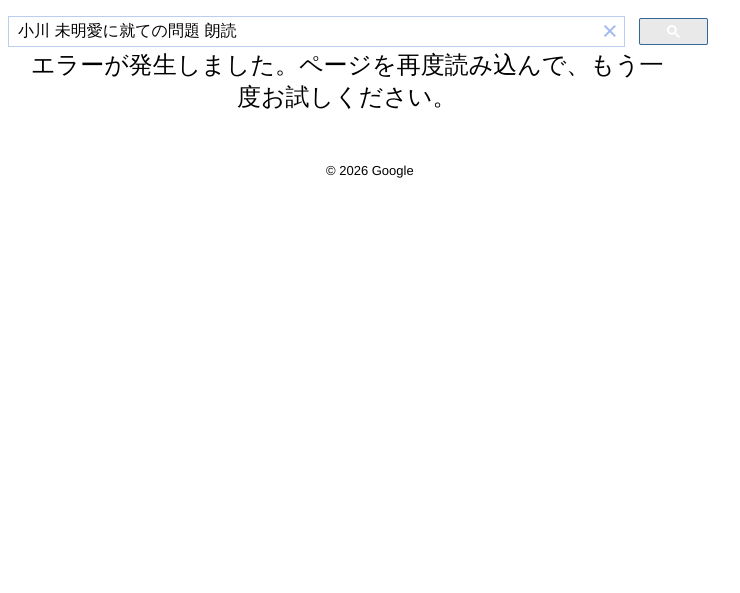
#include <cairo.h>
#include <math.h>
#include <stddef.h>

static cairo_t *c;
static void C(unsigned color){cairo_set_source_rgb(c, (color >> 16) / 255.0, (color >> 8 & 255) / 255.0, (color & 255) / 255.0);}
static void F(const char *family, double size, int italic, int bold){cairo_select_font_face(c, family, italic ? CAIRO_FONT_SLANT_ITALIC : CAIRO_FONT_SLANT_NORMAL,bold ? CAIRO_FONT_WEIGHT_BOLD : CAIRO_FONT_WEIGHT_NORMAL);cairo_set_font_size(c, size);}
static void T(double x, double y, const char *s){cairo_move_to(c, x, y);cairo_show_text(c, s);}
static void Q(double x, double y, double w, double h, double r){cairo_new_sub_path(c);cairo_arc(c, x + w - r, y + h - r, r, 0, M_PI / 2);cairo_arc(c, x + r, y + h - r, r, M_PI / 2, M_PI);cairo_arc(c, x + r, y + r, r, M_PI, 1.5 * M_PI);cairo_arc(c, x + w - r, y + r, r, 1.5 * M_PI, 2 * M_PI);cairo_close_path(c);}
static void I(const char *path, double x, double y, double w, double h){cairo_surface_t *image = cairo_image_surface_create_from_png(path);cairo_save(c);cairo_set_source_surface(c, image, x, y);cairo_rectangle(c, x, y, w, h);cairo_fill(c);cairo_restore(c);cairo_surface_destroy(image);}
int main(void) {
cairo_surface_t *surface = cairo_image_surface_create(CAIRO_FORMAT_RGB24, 740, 593);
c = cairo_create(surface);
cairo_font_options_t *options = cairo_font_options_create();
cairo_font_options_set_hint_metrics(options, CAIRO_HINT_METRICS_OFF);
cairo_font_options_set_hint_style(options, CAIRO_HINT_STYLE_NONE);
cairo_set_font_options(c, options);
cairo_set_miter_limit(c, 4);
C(0xffffff);
cairo_paint(c);
cairo_rectangle(c,8.5,16.5,616,30);
C(0xbccdf0);
cairo_set_line_width(c,1);
cairo_stroke(c);
F("WenQuanYi Zen Hei Medium",16,0,0);
C(0x000000);
T(18,36,"小川 未明愛に就ての問題 朗読");
F("Liberation Sans",27,0,0);
C(0xa1b9ed);
T(602,40,"×");
C(0xe9e9e9);
Q(639.5,18.5,68,26,1.5);
cairo_fill_preserve(c);
C(0x336699);
cairo_stroke(c);
I("1.png",667,25,13,13);
F("WenQuanYi Zen Hei Medium",24,0,0);
C(0x000000);
T(31,73,"エラーが発生しました。ページを再度読み込んで、もう一");
T(237,105,"度お試しください。");
F("Liberation Sans",13,0,0);
T(326,175,"© 2026 Google");
cairo_surface_write_to_png(surface, "o.png");
cairo_font_options_destroy(options);
cairo_destroy(c);
cairo_surface_destroy(surface);
return 0;
}
